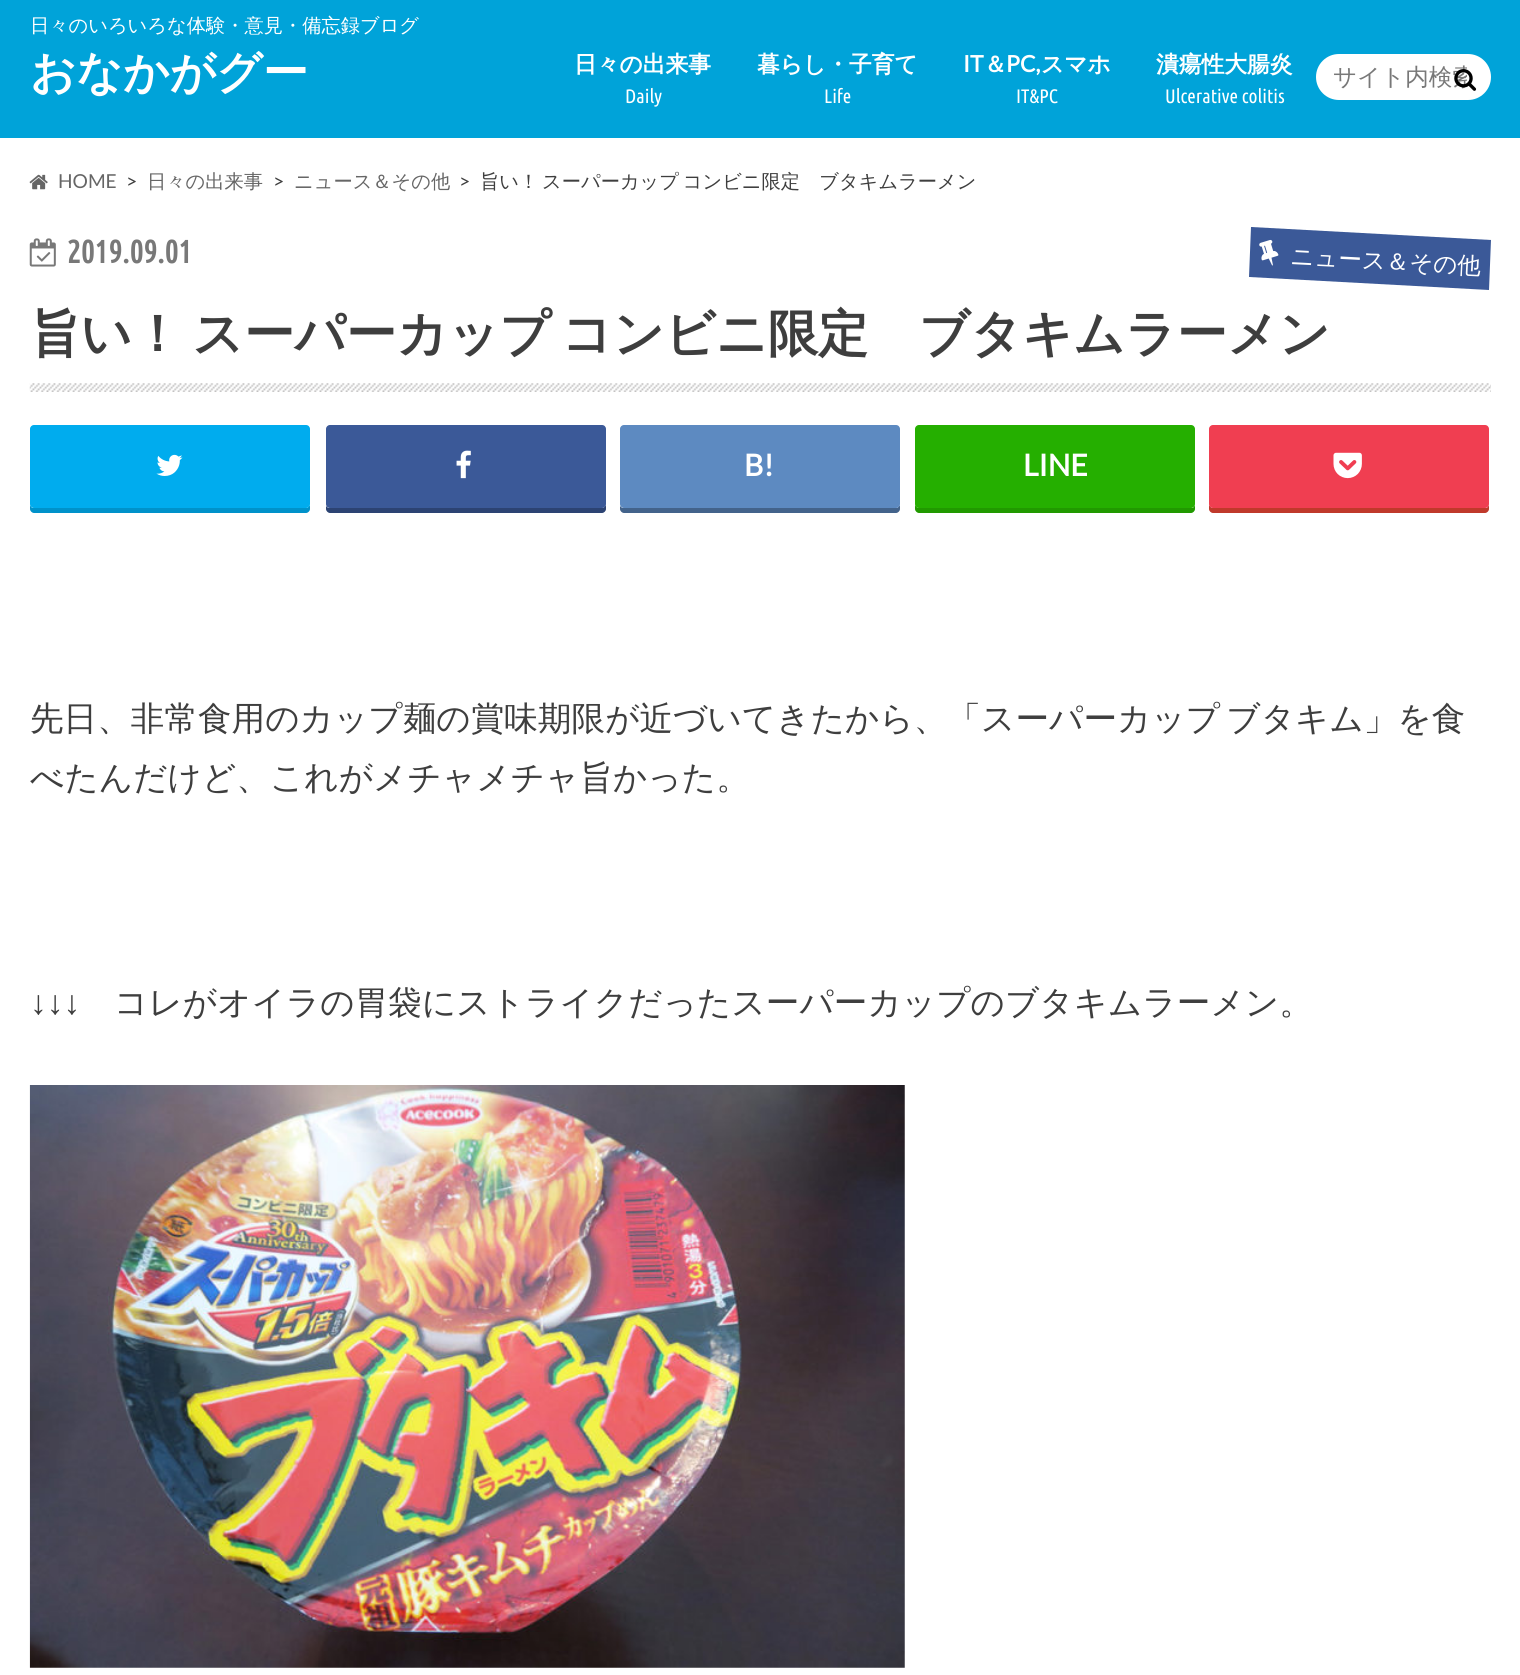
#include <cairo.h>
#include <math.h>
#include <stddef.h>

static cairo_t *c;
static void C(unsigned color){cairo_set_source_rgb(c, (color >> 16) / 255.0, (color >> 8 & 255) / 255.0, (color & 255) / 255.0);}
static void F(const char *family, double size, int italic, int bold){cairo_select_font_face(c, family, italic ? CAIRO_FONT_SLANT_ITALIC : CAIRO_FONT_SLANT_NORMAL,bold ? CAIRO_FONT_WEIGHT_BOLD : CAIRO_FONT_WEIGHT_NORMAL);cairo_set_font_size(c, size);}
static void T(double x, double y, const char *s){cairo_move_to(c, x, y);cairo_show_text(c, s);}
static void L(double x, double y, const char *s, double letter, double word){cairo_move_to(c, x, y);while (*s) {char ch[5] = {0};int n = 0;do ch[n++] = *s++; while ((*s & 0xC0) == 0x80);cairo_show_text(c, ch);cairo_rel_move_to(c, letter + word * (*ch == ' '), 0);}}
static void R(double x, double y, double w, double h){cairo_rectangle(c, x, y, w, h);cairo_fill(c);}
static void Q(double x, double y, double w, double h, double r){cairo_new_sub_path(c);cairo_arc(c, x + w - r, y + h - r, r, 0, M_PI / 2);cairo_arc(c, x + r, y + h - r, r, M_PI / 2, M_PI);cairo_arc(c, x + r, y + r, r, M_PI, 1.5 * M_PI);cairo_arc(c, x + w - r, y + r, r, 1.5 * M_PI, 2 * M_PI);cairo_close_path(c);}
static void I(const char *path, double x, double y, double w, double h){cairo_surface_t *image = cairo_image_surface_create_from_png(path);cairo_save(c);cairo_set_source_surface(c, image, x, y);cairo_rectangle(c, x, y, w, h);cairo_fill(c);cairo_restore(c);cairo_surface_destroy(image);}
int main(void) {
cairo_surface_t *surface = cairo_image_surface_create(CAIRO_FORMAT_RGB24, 1520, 1675);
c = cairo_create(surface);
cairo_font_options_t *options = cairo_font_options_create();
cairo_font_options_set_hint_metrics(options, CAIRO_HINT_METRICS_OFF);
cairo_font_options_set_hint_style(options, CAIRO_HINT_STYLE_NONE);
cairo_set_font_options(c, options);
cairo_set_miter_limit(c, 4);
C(0xffffff);
cairo_paint(c);
C(0x00a3d9);
R(0,0,1520,138);
F("WenQuanYi Zen Hei Medium",19.25,0,0);
C(0xffffff);
T(30,32,"日々のいろいろな体験・意見・備忘録ブログ");
F("WenQuanYi Zen Hei",45.5,0,1);
T(30,88,"おなかがグー");
F("WenQuanYi Zen Hei",22.75,0,1);
T(574,72,"日々の出来事");
F("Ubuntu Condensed",19.5,0,0);
T(625,103,"Daily");
F("WenQuanYi Zen Hei",22.75,0,1);
T(757,72,"暮らし・子育て");
F("Ubuntu Condensed",19.5,0,0);
T(824,103,"Life");
F("Lato",22.75,0,1);
T(963,72,"IT");
F("WenQuanYi Zen Hei",22.75,0,1);
T(984,72,"＆");
F("Lato",22.75,0,1);
T(1006,72,"PC,");
F("WenQuanYi Zen Hei",22.75,0,1);
T(1041,72,"スマホ");
F("Ubuntu Condensed",19.5,0,0);
T(1016,103,"IT&PC");
F("WenQuanYi Zen Hei",22.75,0,1);
T(1156,72,"潰瘍性大腸炎");
F("Ubuntu Condensed",19.5,0,0);
T(1165,103,"Ulcerative colitis");
Q(1316,54,175,46,23);
cairo_fill(c);
cairo_save(c);
cairo_rectangle(c,1334,63,133,32);
cairo_clip(c);
F("WenQuanYi Zen Hei Medium",23.5,0,0);
C(0x787878);
T(1333,85,"サイト内検索");
cairo_restore(c);
I("1.png",1454,69,23,22);
I("2.png",29,174,19,16);
F("Lato",19.25,0,0);
C(0x666666);
T(58,188,"HOME");
C(0x3e3e3e);
T(126,188,">");
F("WenQuanYi Zen Hei Medium",19.25,0,0);
C(0x666666);
T(147,188,"日々の出来事");
F("Lato",19.25,0,0);
C(0x3e3e3e);
T(273,188,">");
F("WenQuanYi Zen Hei Medium",19.25,0,0);
C(0x666666);
T(294,188,"ニュース＆その他");
F("Lato",19.25,0,0);
C(0x3e3e3e);
T(459,188,">");
F("WenQuanYi Zen Hei Medium",19.25,0,0);
L(480,188,"旨い！ スーパーカップ コンビニ限定　ブタキムラーメン",0,-2);
I("3.png",29,238,27,29);
F("Ubuntu Condensed",32,0,1);
C(0x787878);
T(67,263,"2019.09.01");
C(0x3b5998);
cairo_new_path(c);
cairo_move_to(c,1251,227);
cairo_line_to(c,1491,240);
cairo_line_to(c,1489,290);
cairo_line_to(c,1249,277);
cairo_close_path(c);
cairo_fill(c);
I("4.png",1259,239,20,27);
F("WenQuanYi Zen Hei Medium",23.5,0,0);
C(0xffffff);
cairo_save(c);
cairo_translate(c,1290,264);
cairo_rotate(c,3 * M_PI / 180);
T(0,0,"ニュース＆その他");
cairo_restore(c);
I("5.png",29,383,1462,9);
F("WenQuanYi Zen Hei",50.4,0,1);
C(0x3e3e3e);
L(30,351,"旨い！ スーパーカップ コンビニ限定　ブタキムラーメン",0,-5);
C(0x0092ca);
cairo_new_path(c);
cairo_move_to(c,30,505);
cairo_line_to(c,30,509);
cairo_curve_to(c,30,511,32,513,34,513);
cairo_line_to(c,306,513);
cairo_curve_to(c,308,513,310,511,310,509);
cairo_line_to(c,310,434);
cairo_line_to(c,310,504);
cairo_curve_to(c,310,506,308,508,306,508);
cairo_line_to(c,33,508);
cairo_curve_to(c,32,508,31,507,30,505);
cairo_close_path(c);
cairo_fill(c);
C(0x00acee);
Q(30,425,280,83,4);
cairo_fill(c);
I("6.png",156,454,27,22);
C(0x2c4373);
cairo_new_path(c);
cairo_move_to(c,326,506);
cairo_line_to(c,326,509);
cairo_curve_to(c,326,511,328,513,330,513);
cairo_line_to(c,602,513);
cairo_curve_to(c,604,513,606,511,606,509);
cairo_line_to(c,606,435);
cairo_line_to(c,606,433);
cairo_line_to(c,606,504);
cairo_curve_to(c,606,506,604,508,602,508);
cairo_line_to(c,329,508);
cairo_curve_to(c,328,508,327,507,326,506);
cairo_close_path(c);
cairo_fill(c);
C(0x3b5998);
Q(326,425,280,83,4);
cairo_fill(c);
I("7.png",456,450,15,29);
C(0x43638b);
cairo_new_path(c);
cairo_move_to(c,620,506);
cairo_line_to(c,620,509);
cairo_curve_to(c,620,511,622,513,624,513);
cairo_line_to(c,896,513);
cairo_curve_to(c,898,513,900,511,900,509);
cairo_line_to(c,900,435);
cairo_line_to(c,900,433);
cairo_line_to(c,900,504);
cairo_curve_to(c,900,506,898,508,896,508);
cairo_line_to(c,623,508);
cairo_curve_to(c,622,508,621,507,620,506);
cairo_close_path(c);
cairo_fill(c);
C(0x5d8ac1);
Q(620,425,280,83,4);
cairo_fill(c);
F("Lato",30,0,1);
C(0xffffff);
T(744,476,"B!");
C(0x219900);
cairo_new_path(c);
cairo_move_to(c,915,434);
cairo_line_to(c,915,509);
cairo_curve_to(c,915,511,917,513,919,513);
cairo_line_to(c,1191,513);
cairo_curve_to(c,1193,513,1195,511,1195,509);
cairo_line_to(c,1195,505);
cairo_curve_to(c,1194,507,1193,508,1192,508);
cairo_line_to(c,919,508);
cairo_curve_to(c,917,508,915,506,915,504);
cairo_close_path(c);
cairo_fill(c);
C(0x25af00);
Q(915,425,280,83,4);
cairo_fill(c);
C(0xffffff);
T(1023,476,"LINE");
C(0xc0392b);
cairo_new_path(c);
cairo_move_to(c,1209,434);
cairo_line_to(c,1209,509);
cairo_curve_to(c,1209,511,1211,513,1213,513);
cairo_line_to(c,1485,513);
cairo_curve_to(c,1487,513,1489,511,1489,509);
cairo_line_to(c,1489,505);
cairo_curve_to(c,1488,507,1487,508,1486,508);
cairo_line_to(c,1213,508);
cairo_curve_to(c,1211,508,1209,506,1209,504);
cairo_close_path(c);
cairo_fill(c);
C(0xf03e51);
Q(1209,425,280,83,4);
cairo_fill(c);
I("8.png",1333,452,29,27);
F("WenQuanYi Zen Hei Medium",33.6,0,0);
C(0x3e3e3e);
L(30,730,"先日、非常食用のカップ麺の賞味期限が近づいてきたから、「スーパーカップ ブタキム」を食",0,-4);
T(30,789,"べたんだけど、これがメチャメチャ旨かった。");
F("Liberation Sans",33.6,0,0);
T(30,1014,"↓↓↓");
F("WenQuanYi Zen Hei Medium",33.6,0,0);
T(114,1014,"コレがオイラの胃袋にストライクだったスーパーカップのブタキムラーメン。");
I("9.png",29,1085,876,583);
cairo_surface_write_to_png(surface, "o.png");
cairo_font_options_destroy(options);
cairo_destroy(c);
cairo_surface_destroy(surface);
return 0;
}
